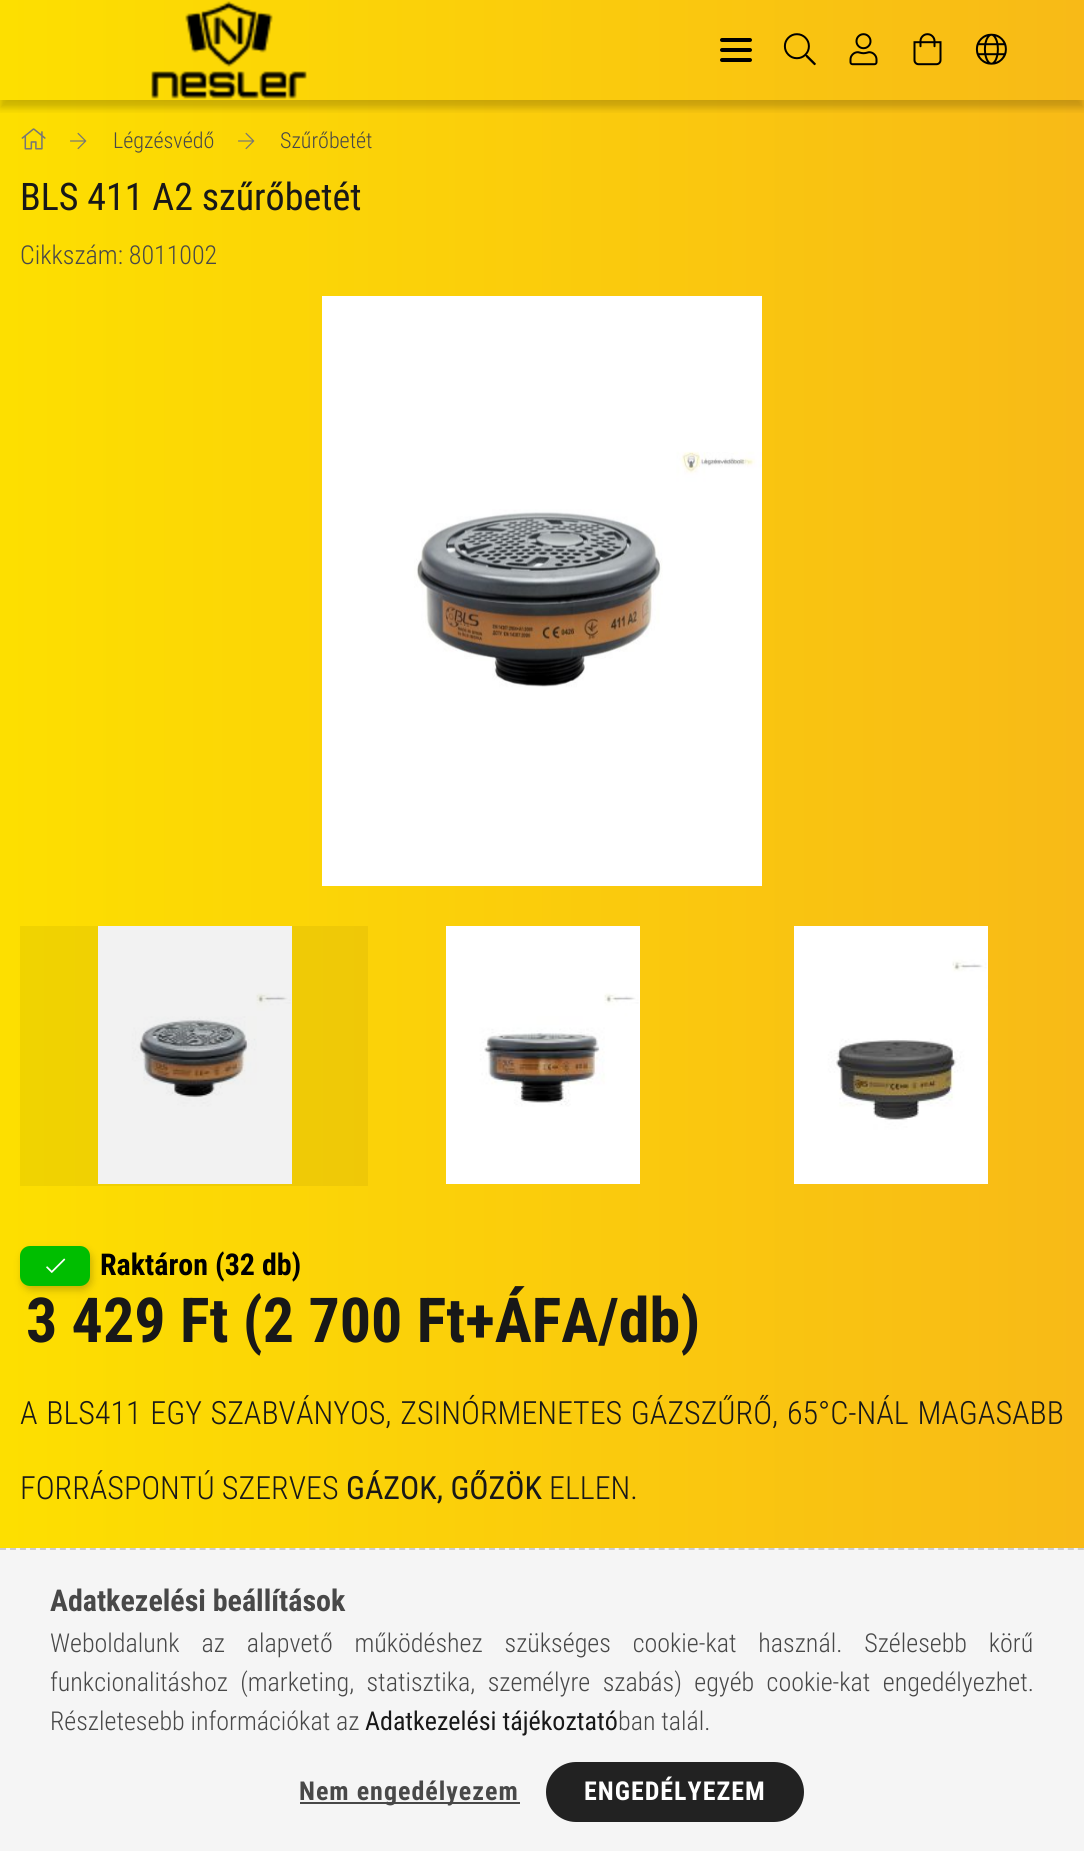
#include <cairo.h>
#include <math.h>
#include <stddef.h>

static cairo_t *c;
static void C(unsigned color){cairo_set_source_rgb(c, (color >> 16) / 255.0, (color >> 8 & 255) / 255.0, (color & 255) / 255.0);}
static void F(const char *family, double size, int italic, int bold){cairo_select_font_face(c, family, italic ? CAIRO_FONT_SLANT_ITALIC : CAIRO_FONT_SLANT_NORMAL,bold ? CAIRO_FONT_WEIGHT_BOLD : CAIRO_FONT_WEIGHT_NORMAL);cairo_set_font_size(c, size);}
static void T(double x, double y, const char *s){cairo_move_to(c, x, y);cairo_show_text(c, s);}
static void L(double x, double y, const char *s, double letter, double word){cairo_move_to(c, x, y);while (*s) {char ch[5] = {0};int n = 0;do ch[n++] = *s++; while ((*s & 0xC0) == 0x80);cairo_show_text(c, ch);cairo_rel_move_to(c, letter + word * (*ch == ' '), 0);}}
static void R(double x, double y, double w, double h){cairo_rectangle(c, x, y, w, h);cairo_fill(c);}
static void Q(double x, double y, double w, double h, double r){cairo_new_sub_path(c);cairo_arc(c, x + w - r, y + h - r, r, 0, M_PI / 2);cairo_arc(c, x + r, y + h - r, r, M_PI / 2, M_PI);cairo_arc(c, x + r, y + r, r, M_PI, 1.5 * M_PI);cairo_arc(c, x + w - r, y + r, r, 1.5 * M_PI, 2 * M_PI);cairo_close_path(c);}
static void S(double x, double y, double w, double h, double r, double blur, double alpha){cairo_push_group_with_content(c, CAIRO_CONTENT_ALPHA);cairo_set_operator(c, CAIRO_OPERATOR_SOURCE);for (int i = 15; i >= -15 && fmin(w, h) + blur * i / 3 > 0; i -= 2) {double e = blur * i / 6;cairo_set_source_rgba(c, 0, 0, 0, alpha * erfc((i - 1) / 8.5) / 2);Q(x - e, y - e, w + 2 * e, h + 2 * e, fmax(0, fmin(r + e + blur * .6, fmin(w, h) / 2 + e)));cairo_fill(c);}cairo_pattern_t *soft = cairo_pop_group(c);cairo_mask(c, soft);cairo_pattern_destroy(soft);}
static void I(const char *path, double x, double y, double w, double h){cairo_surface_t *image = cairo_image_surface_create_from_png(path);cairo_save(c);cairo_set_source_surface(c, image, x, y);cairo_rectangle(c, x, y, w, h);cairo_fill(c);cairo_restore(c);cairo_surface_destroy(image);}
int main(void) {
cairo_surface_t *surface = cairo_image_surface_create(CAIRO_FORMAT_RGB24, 1084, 1851);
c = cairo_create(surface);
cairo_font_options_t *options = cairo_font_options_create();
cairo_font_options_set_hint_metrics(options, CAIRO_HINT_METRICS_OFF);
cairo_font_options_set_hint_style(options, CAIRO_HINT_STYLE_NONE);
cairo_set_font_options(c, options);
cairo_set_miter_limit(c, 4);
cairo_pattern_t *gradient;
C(0xffffff);
cairo_paint(c);
gradient = cairo_pattern_create_linear(0,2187,1084,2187);
cairo_pattern_add_color_stop_rgba(gradient,0,0.992,0.875,0,1);
cairo_pattern_add_color_stop_rgba(gradient,1,0.973,0.729,0.09,1);
cairo_set_source(c,gradient);
cairo_pattern_destroy(gradient);
R(0,0,1084,1548);
gradient = cairo_pattern_create_linear(0,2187,1084,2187);
cairo_pattern_add_color_stop_rgba(gradient,0,0.941,0.831,0,1);
cairo_pattern_add_color_stop_rgba(gradient,1,0.925,0.694,0.086,1);
cairo_set_source(c,gradient);
cairo_pattern_destroy(gradient);
R(20,926,348,260);
cairo_save(c);
cairo_rectangle(c,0,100,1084,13);
cairo_clip(c);
C(0x000000);
S(0,8,1084,100,0,4,.2);
cairo_restore(c);
I("1.png",151,1,156,98);
C(0x000000);
Q(720,38,32,4,2);
cairo_fill(c);
Q(720,48,32,4,2);
cairo_fill(c);
Q(720,58,32,4,2);
cairo_fill(c);
I("2.png",783,33,33,33);
I("3.png",849,33,29,33);
I("4.png",913,33,29,33);
I("5.png",975,33,32,32);
I("6.png",21,128,25,22);
I("7.png",70,132,17,18);
F("Roboto Condensed Light",22,0,0);
C(0x484848);
T(113,148,"Légzésvédő");
I("8.png",238,132,17,18);
T(280,148,"Szűrőbetét");
F("Roboto Condensed",38,0,0);
C(0x181818);
T(20,210,"BLS 411 A2 szűrőbetét");
F("Roboto Condensed Light",26,0,0);
C(0x484848);
T(20,264,"Cikkszám: 8011002");
I("9.png",322,296,440,590);
I("10.png",98,926,194,258);
I("11.png",446,926,194,258);
I("12.png",794,926,194,258);
C(0x000000);
S(22,1250,70,40,10,4,.2);
C(0x00be00);
Q(20,1246,70,40,10);
cairo_fill(c);
I("13.png",46,1258,20,15);
F("Roboto Condensed",30,0,1);
C(0x000000);
T(100,1275,"Raktáron (32 db)");
F("Roboto Condensed",62,0,1);
C(0x181818);
T(26,1342,"3 429 Ft (2 700 Ft+ÁFA/db)");
F("Roboto Condensed Light",32,0,0);
L(20,1424,"A BLS411 EGY SZABVÁNYOS, ZSINÓRMENETES GÁZSZŰRŐ, 65°C-NÁL MAGASABB",0,1.5);
T(20,1499,"FORRÁSPONTÚ SZERVES");
F("Roboto Condensed",32,0,0);
T(346,1499,"GÁZOK, GŐZÖK");
F("Roboto Condensed Light",32,0,0);
T(549,1499,"ELLEN.");
C(0xf5f5f5);
R(0,1548,1084,303);
cairo_new_path(c);
cairo_move_to(c,0,1549);
cairo_line_to(c,1084,1549);
C(0xcccccc);
cairo_set_dash(c,(double[]){6,3.98},2,0);
cairo_stroke(c);
F("Roboto Condensed",30,0,1);
C(0x484848);
T(50,1611,"Adatkezelési beállítások");
F("Roboto Condensed Light",26,0,0);
L(50,1652,"Weboldalunk az alapvető működéshez szükséges cookie-kat használ. Szélesebb körű",0,16);
L(50,1691,"funkcionalitáshoz (marketing, statisztika, személyre szabás) egyéb cookie-kat engedélyezhet.",0,6.5);
T(50,1730,"Részletesebb információkat az");
F("Roboto Condensed",26,0,0);
C(0x181818);
T(365,1730,"Adatkezelési tájékoztató");
F("Roboto Condensed Light",26,0,0);
C(0x484848);
T(618,1730,"ban talál.");
R(300,1802,220,2);
F("Roboto Condensed",26,0,1);
L(299,1800,"Nem engedélyezem",1,0);
C(0x222222);
Q(547,1763,256,58,29);
cairo_fill_preserve(c);
cairo_set_dash(c,NULL,0,0);
cairo_stroke(c);
C(0xffffff);
L(584,1800,"ENGEDÉLYEZEM",1,0);
cairo_surface_write_to_png(surface, "o.png");
cairo_font_options_destroy(options);
cairo_destroy(c);
cairo_surface_destroy(surface);
return 0;
}
